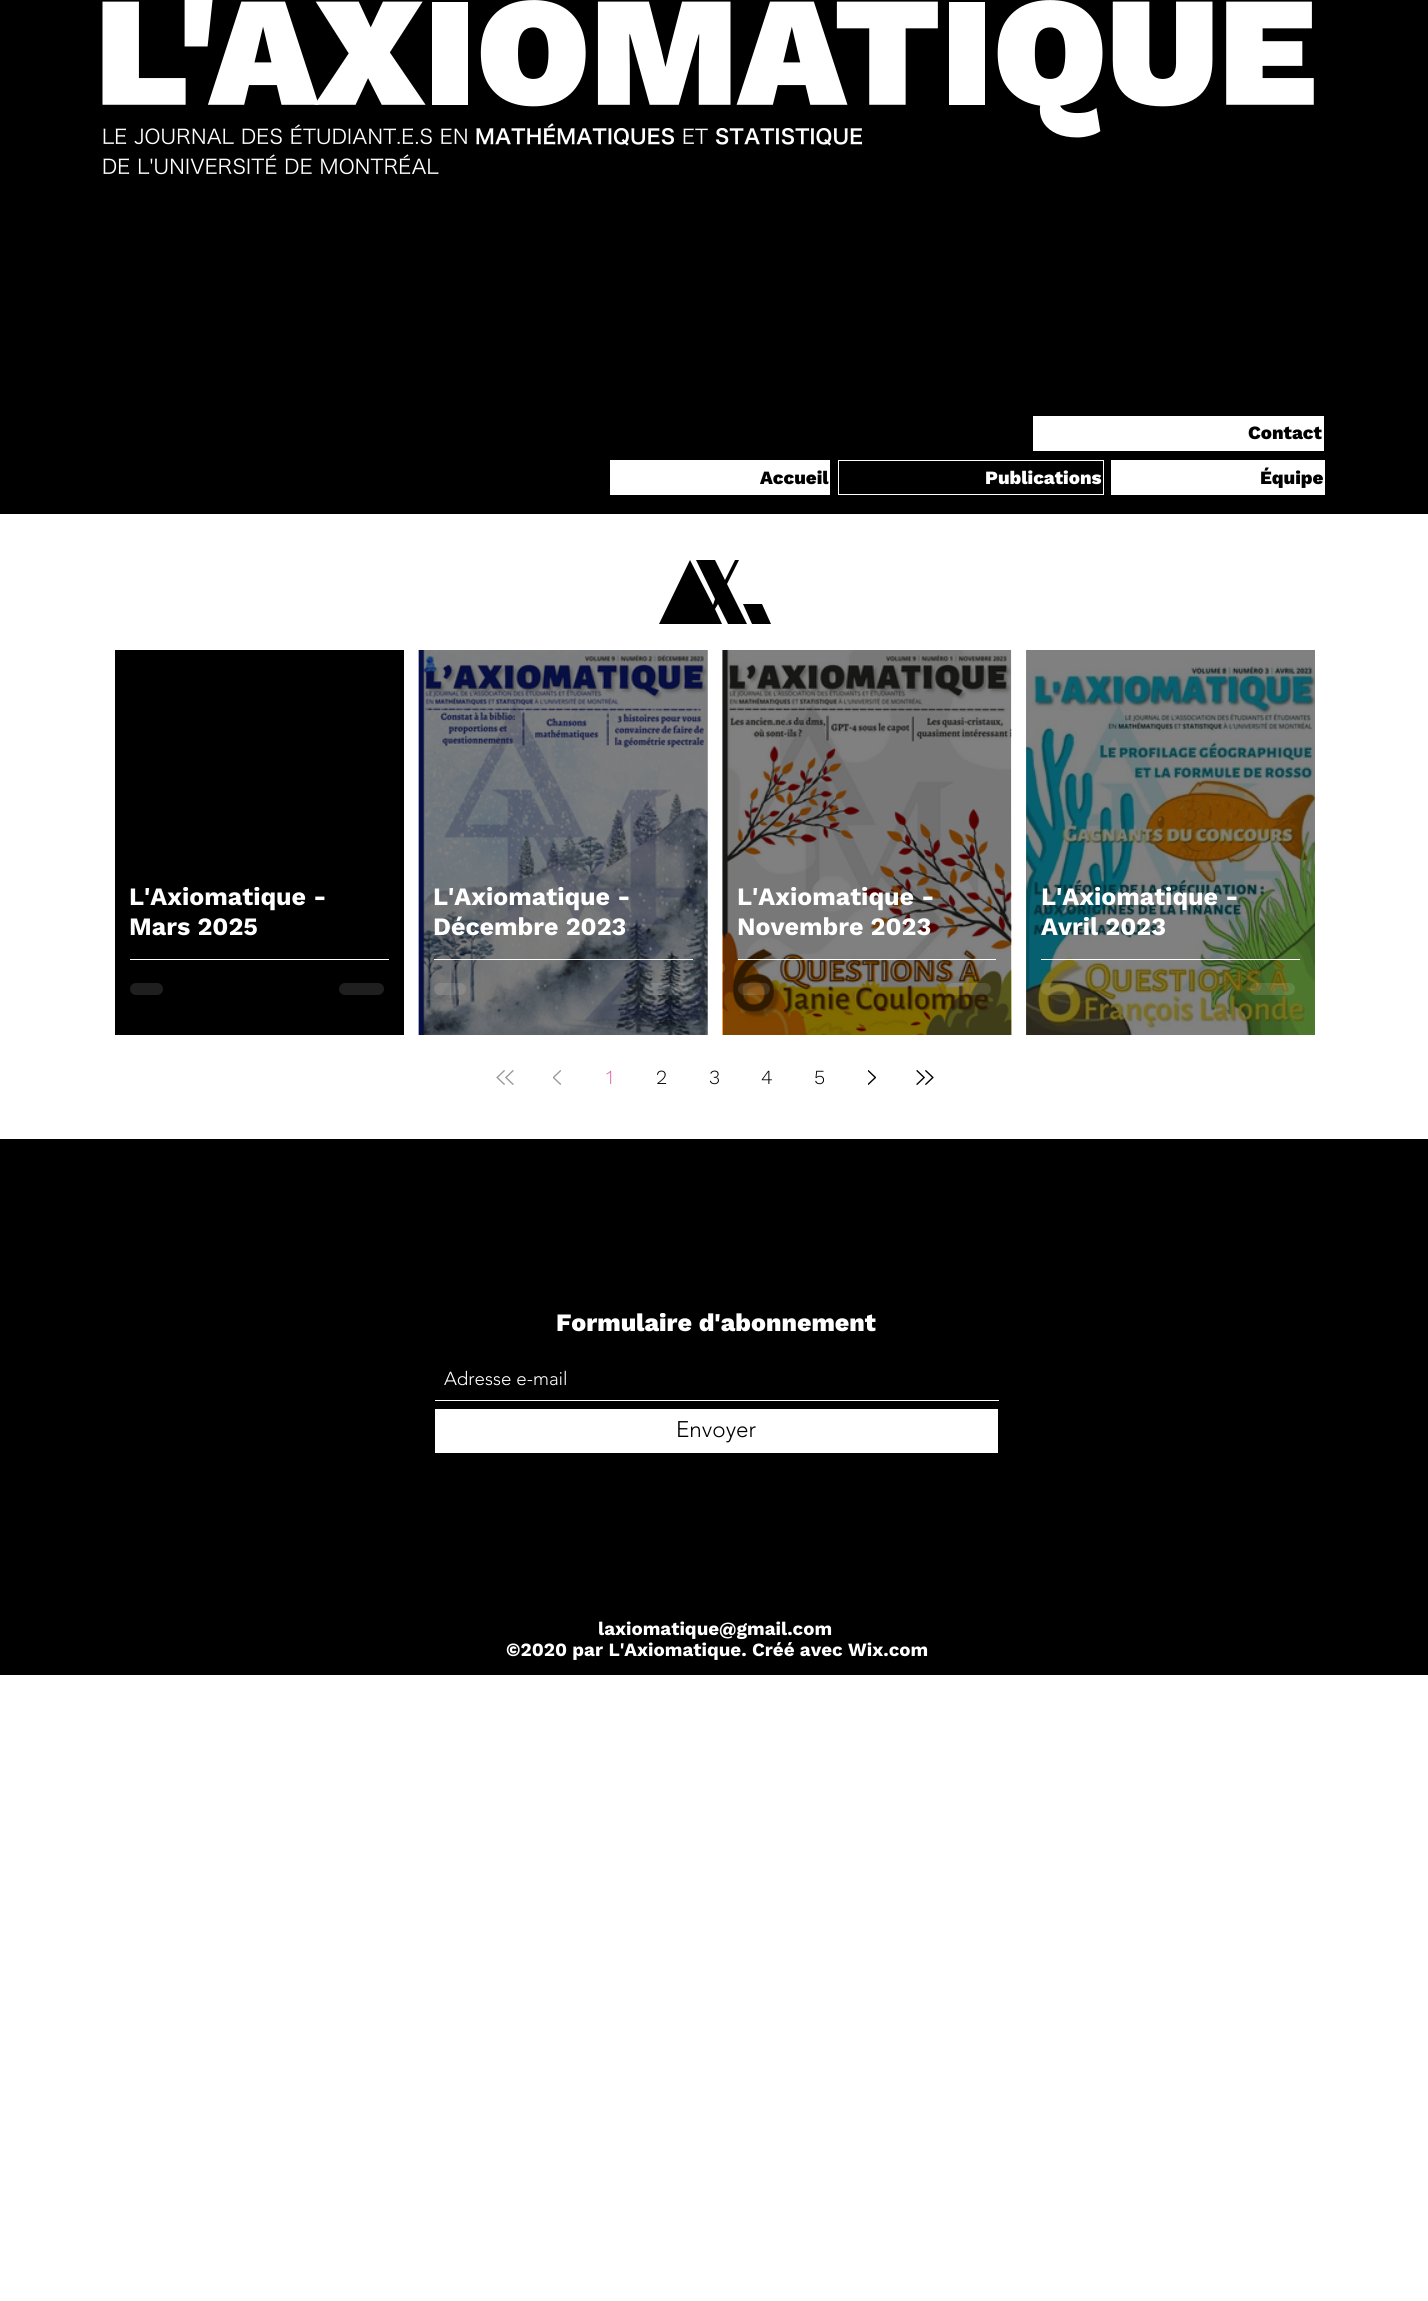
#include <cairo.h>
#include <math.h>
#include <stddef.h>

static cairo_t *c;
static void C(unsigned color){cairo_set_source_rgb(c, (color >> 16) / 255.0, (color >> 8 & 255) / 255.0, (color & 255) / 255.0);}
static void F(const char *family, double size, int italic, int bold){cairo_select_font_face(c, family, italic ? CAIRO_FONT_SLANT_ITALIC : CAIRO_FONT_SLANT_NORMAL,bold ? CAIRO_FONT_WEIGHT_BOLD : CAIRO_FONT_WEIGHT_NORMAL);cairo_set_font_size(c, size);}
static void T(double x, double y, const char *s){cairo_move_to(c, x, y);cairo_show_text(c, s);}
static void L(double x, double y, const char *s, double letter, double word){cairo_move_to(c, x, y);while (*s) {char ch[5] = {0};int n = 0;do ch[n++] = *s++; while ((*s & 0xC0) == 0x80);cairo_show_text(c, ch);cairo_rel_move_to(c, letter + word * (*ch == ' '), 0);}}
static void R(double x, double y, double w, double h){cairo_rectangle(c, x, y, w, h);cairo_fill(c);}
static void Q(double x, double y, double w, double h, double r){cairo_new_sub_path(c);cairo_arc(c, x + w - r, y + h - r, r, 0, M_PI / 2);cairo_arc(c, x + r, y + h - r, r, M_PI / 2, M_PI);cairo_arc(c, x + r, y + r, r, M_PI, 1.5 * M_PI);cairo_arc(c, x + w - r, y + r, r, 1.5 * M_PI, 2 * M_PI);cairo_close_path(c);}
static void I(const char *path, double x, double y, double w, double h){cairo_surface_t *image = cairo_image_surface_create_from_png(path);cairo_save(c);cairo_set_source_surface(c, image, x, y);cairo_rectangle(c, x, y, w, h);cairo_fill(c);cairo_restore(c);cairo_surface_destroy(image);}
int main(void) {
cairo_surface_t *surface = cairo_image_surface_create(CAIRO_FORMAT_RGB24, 1428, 2301);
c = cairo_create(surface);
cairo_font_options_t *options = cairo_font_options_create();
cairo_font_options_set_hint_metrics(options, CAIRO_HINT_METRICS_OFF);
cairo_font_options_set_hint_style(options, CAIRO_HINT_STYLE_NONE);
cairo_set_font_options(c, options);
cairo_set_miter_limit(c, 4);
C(0xffffff);
cairo_paint(c);
C(0x000000);
R(0,0,1428,514);
I("1.png",102,0,1212,138);
F("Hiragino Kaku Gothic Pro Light",20,0,0);
C(0xffffff);
L(102,144,"LE JOURNAL DES ÉTUDIANT.E.S EN",.2,0);
F("Hiragino Kaku Gothic Pro SemiBold",20,0,0);
L(475,144,"MATHÉMATIQUES",.2,0);
F("Hiragino Kaku Gothic Pro Light",20,0,0);
L(682,144,"ET",.2,0);
F("Hiragino Kaku Gothic Pro SemiBold",20,0,0);
L(715,144,"STATISTIQUE",.2,0);
F("Hiragino Kaku Gothic Pro Light",20,0,0);
L(102,174,"DE L'UNIVERSITÉ DE MONTRÉAL",.2,0);
R(1033,416,291,35);
F("Work Sans ExtraBold",18.75,0,0);
C(0x000000);
T(1248,439,"Contact");
C(0xffffff);
R(610,460,220,35);
C(0x000000);
T(760,484,"Accueil");
cairo_rectangle(c,838.5,460.5,265,34);
C(0xffffff);
cairo_set_line_width(c,1);
cairo_stroke(c);
T(985,484,"Publications");
R(1111,460,214,35);
C(0x000000);
T(1260,484,"Équipe");
cairo_new_path(c);
cairo_move_to(c,690,560);
cairo_line_to(c,659,624);
cairo_line_to(c,722,624);
cairo_line_to(c,715,609);
cairo_line_to(c,718,604);
cairo_line_to(c,728,624);
cairo_line_to(c,747,624);
cairo_line_to(c,727,584);
cairo_line_to(c,739,560);
cairo_line_to(c,735,560);
cairo_line_to(c,725,580);
cairo_line_to(c,715,560);
cairo_line_to(c,696,560);
cairo_line_to(c,715,599);
cairo_line_to(c,713,605);
cairo_close_path(c);
cairo_move_to(c,743,604);
cairo_line_to(c,752,624);
cairo_line_to(c,771,624);
cairo_line_to(c,762,604);
cairo_close_path(c);
cairo_fill(c);
R(115,650,289,385);
F("Work Sans",25,0,1);
C(0xffffff);
T(129,905,"L'Axiomatique -");
T(129,935,"Mars 2025");
R(130,959,259,1);
C(0x1f1f1f);
Q(130,983,33,12,6);
cairo_fill(c);
Q(339,983,45,12,6);
cairo_fill(c);
I("2.png",418,650,290,385);
I("3.png",418,650,290,385);
C(0xffffff);
T(433,905,"L'Axiomatique -");
T(433,935,"Décembre 2023");
R(434,959,259,1);
cairo_set_source_rgba(c,1,1,1,0.12);
Q(434,983,32,12,6);
cairo_fill(c);
Q(643,983,45,12,6);
cairo_fill(c);
I("4.png",722,650,290,385);
I("5.png",722,650,290,385);
C(0xffffff);
T(737,905,"L'Axiomatique -");
T(737,935,"Novembre 2023");
R(738,959,258,1);
cairo_set_source_rgba(c,1,1,1,0.12);
Q(738,983,32,12,6);
cairo_fill(c);
Q(946,983,45,12,6);
cairo_fill(c);
I("6.png",1026,650,1,385);
I("7.png",1026,650,289,385);
C(0xffffff);
T(1041,905,"L'Axiomatique -");
T(1041,935,"Avril 2023");
R(1041,959,259,1);
cairo_set_source_rgba(c,1,1,1,0.12);
Q(1041,983,33,12,6);
cairo_fill(c);
Q(1250,983,45,12,6);
cairo_fill(c);
I("8.png",496,1070,9,15);
I("9.png",505,1070,9,15);
I("10.png",553,1070,8,15);
F("Work Sans Light",20,0,0);
C(0xda6baa);
T(606,1084,"1");
C(0x000000);
T(656,1084,"2");
T(709,1084,"3");
T(761,1084,"4");
T(814,1084,"5");
I("11.png",868,1070,8,15);
I("12.png",916,1070,9,15);
I("13.png",925,1070,9,15);
R(0,1139,1428,536);
F("Work Sans ExtraBold",25,0,0);
C(0xffffff);
T(556,1331,"Formulaire d'abonnement");
R(435,1400,564,1);
F("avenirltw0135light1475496 Light",18.75,0,0);
T(444,1385,"Adresse e-mail");
R(435,1409,563,44);
F("avenirltw0135light1475496 Light",22.5,0,0);
C(0x000000);
T(676,1437,"Envoyer");
F("Work Sans",18.75,0,1);
C(0xffffff);
T(598,1635,"laxiomatique@gmail.com");
T(506,1656,"©2020 par L'Axiomatique. Créé avec Wix.com");
cairo_surface_write_to_png(surface, "o.png");
cairo_font_options_destroy(options);
cairo_destroy(c);
cairo_surface_destroy(surface);
return 0;
}
